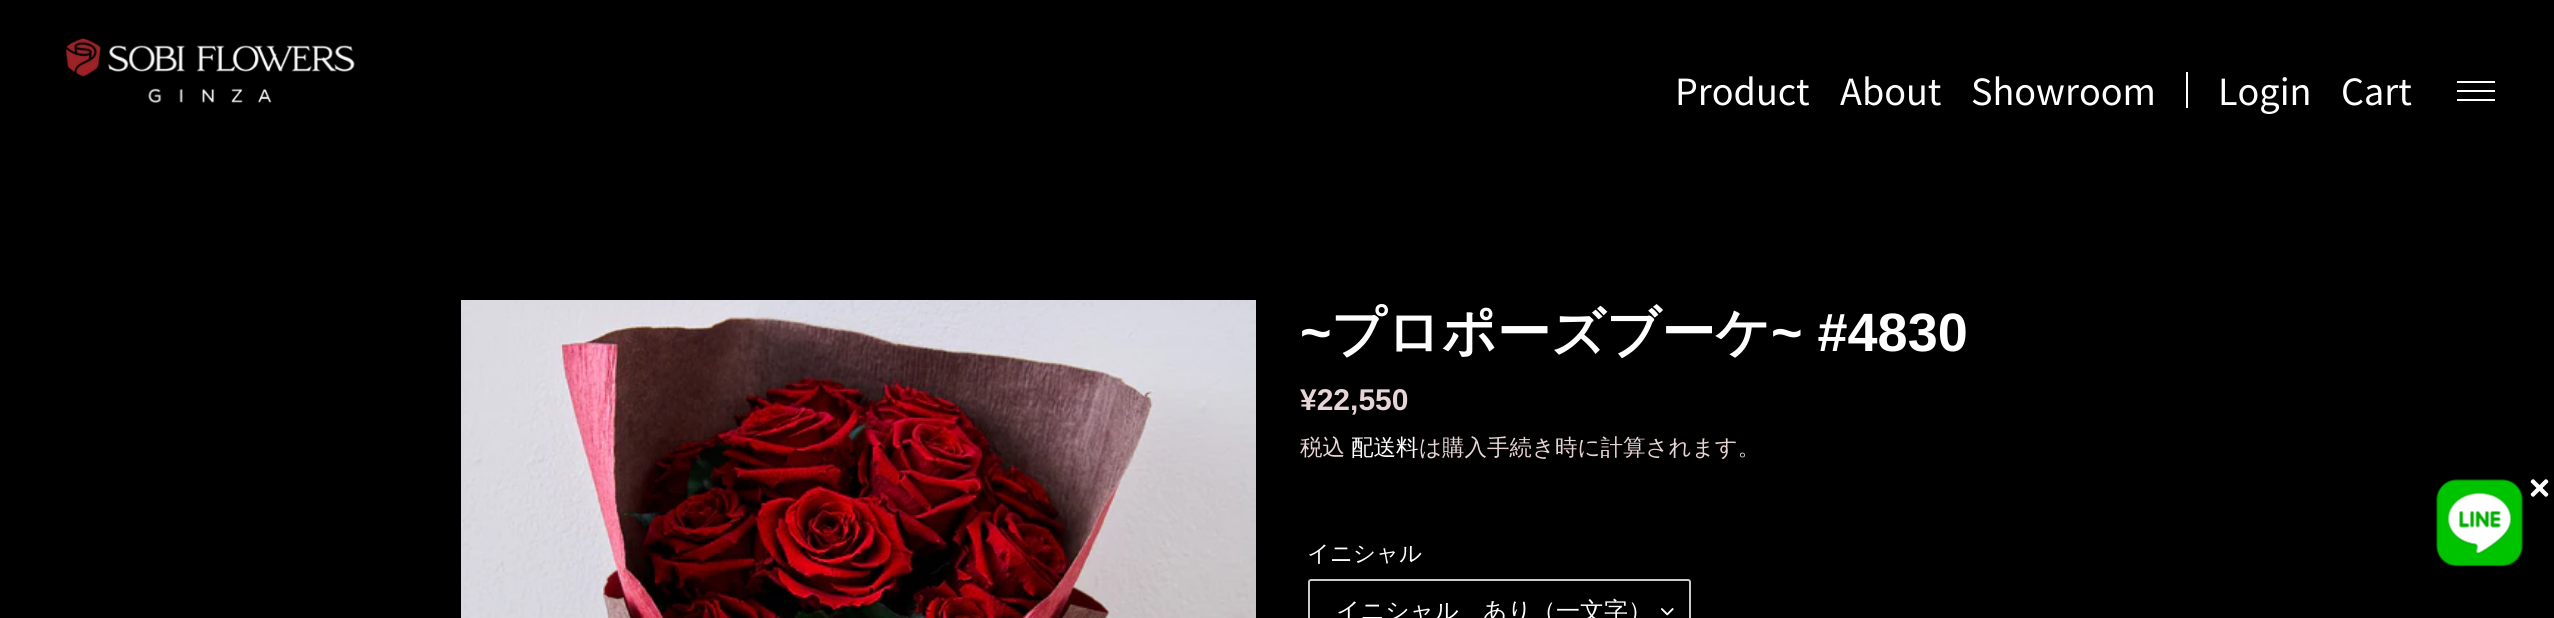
#include <cairo.h>
#include <math.h>
#include <stddef.h>

static cairo_t *c;
static void C(unsigned color){cairo_set_source_rgb(c, (color >> 16) / 255.0, (color >> 8 & 255) / 255.0, (color & 255) / 255.0);}
static void F(const char *family, double size, int italic, int bold){cairo_select_font_face(c, family, italic ? CAIRO_FONT_SLANT_ITALIC : CAIRO_FONT_SLANT_NORMAL,bold ? CAIRO_FONT_WEIGHT_BOLD : CAIRO_FONT_WEIGHT_NORMAL);cairo_set_font_size(c, size);}
static void T(double x, double y, const char *s){cairo_move_to(c, x, y);cairo_show_text(c, s);}
static void R(double x, double y, double w, double h){cairo_rectangle(c, x, y, w, h);cairo_fill(c);}
static void Q(double x, double y, double w, double h, double r){cairo_new_sub_path(c);cairo_arc(c, x + w - r, y + h - r, r, 0, M_PI / 2);cairo_arc(c, x + r, y + h - r, r, M_PI / 2, M_PI);cairo_arc(c, x + r, y + r, r, M_PI, 1.5 * M_PI);cairo_arc(c, x + w - r, y + r, r, 1.5 * M_PI, 2 * M_PI);cairo_close_path(c);}
static void I(const char *path, double x, double y, double w, double h){cairo_surface_t *image = cairo_image_surface_create_from_png(path);cairo_save(c);cairo_set_source_surface(c, image, x, y);cairo_rectangle(c, x, y, w, h);cairo_fill(c);cairo_restore(c);cairo_surface_destroy(image);}
int main(void) {
cairo_surface_t *surface = cairo_image_surface_create(CAIRO_FORMAT_RGB24, 2554, 618);
c = cairo_create(surface);
cairo_font_options_t *options = cairo_font_options_create();
cairo_font_options_set_hint_metrics(options, CAIRO_HINT_METRICS_OFF);
cairo_font_options_set_hint_style(options, CAIRO_HINT_STYLE_NONE);
cairo_set_font_options(c, options);
cairo_set_miter_limit(c, 4);
C(0x000000);
cairo_paint(c);
I("1.png",65,37,290,66);
F("Noto Sans JP",36,0,0);
C(0xffffff);
T(1675,105,"Product");
T(1840,105,"About");
T(1971,105,"Showroom");
R(2186,72,2,36);
T(2218,105,"Login");
T(2341,105,"Cart");
R(2457,90,38,2);
R(2457,81,38,2);
R(2457,99,38,2);
I("2.png",461,300,795,318);
F("Liberation Sans",54,0,1);
T(1300,351,"~");
F("WenQuanYi Zen Hei",54,0,1);
T(1331,351,"プロポーズブーケ");
F("Liberation Sans",54,0,1);
T(1771,351,"~ #4830");
F("Liberation Sans",30,0,1);
C(0xe7d4d4);
T(1300,410,"¥22,550");
F("WenQuanYi Zen Hei Medium",22.5,0,0);
T(1300,455,"税込");
C(0xffffff);
T(1351,455,"配送料");
C(0xe7d4d4);
T(1419,455,"は購入手続き時に計算されます。");
C(0xffffff);
T(1307,561,"イニシャル");
I("3.png",1661,608,13,8);
Q(1309,580,381,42,2);
C(0xcccccc);
cairo_stroke(c);
F("WenQuanYi Zen Hei Medium",24,0,0);
C(0xffffff);
T(1336,619,"イニシャル　あり（一文字）");
I("4.png",2436,479,87,88);
cairo_new_path(c);
cairo_move_to(c,2547.5,480);
cairo_curve_to(c,2548.5,481,2548.5,482.5,2547.5,483);
cairo_line_to(c,2534.5,496);
cairo_curve_to(c,2534,497,2532.5,497,2531.5,496);
cairo_curve_to(c,2530.5,495,2530.5,493.5,2531.5,493);
cairo_line_to(c,2544.5,480);
cairo_curve_to(c,2545,479,2546.5,479,2547.5,480);
cairo_close_path(c);
cairo_fill(c);
cairo_new_path(c);
cairo_move_to(c,2531.5,480);
cairo_curve_to(c,2532.5,479,2534,479,2534.5,480);
cairo_line_to(c,2547.5,493);
cairo_curve_to(c,2548.5,493.5,2548.5,495,2547.5,496);
cairo_curve_to(c,2546.5,497,2545,497,2544.5,496);
cairo_line_to(c,2531.5,483);
cairo_curve_to(c,2530.5,482.5,2530.5,481,2531.5,480);
cairo_close_path(c);
cairo_fill(c);
cairo_surface_write_to_png(surface, "o.png");
cairo_font_options_destroy(options);
cairo_destroy(c);
cairo_surface_destroy(surface);
return 0;
}
